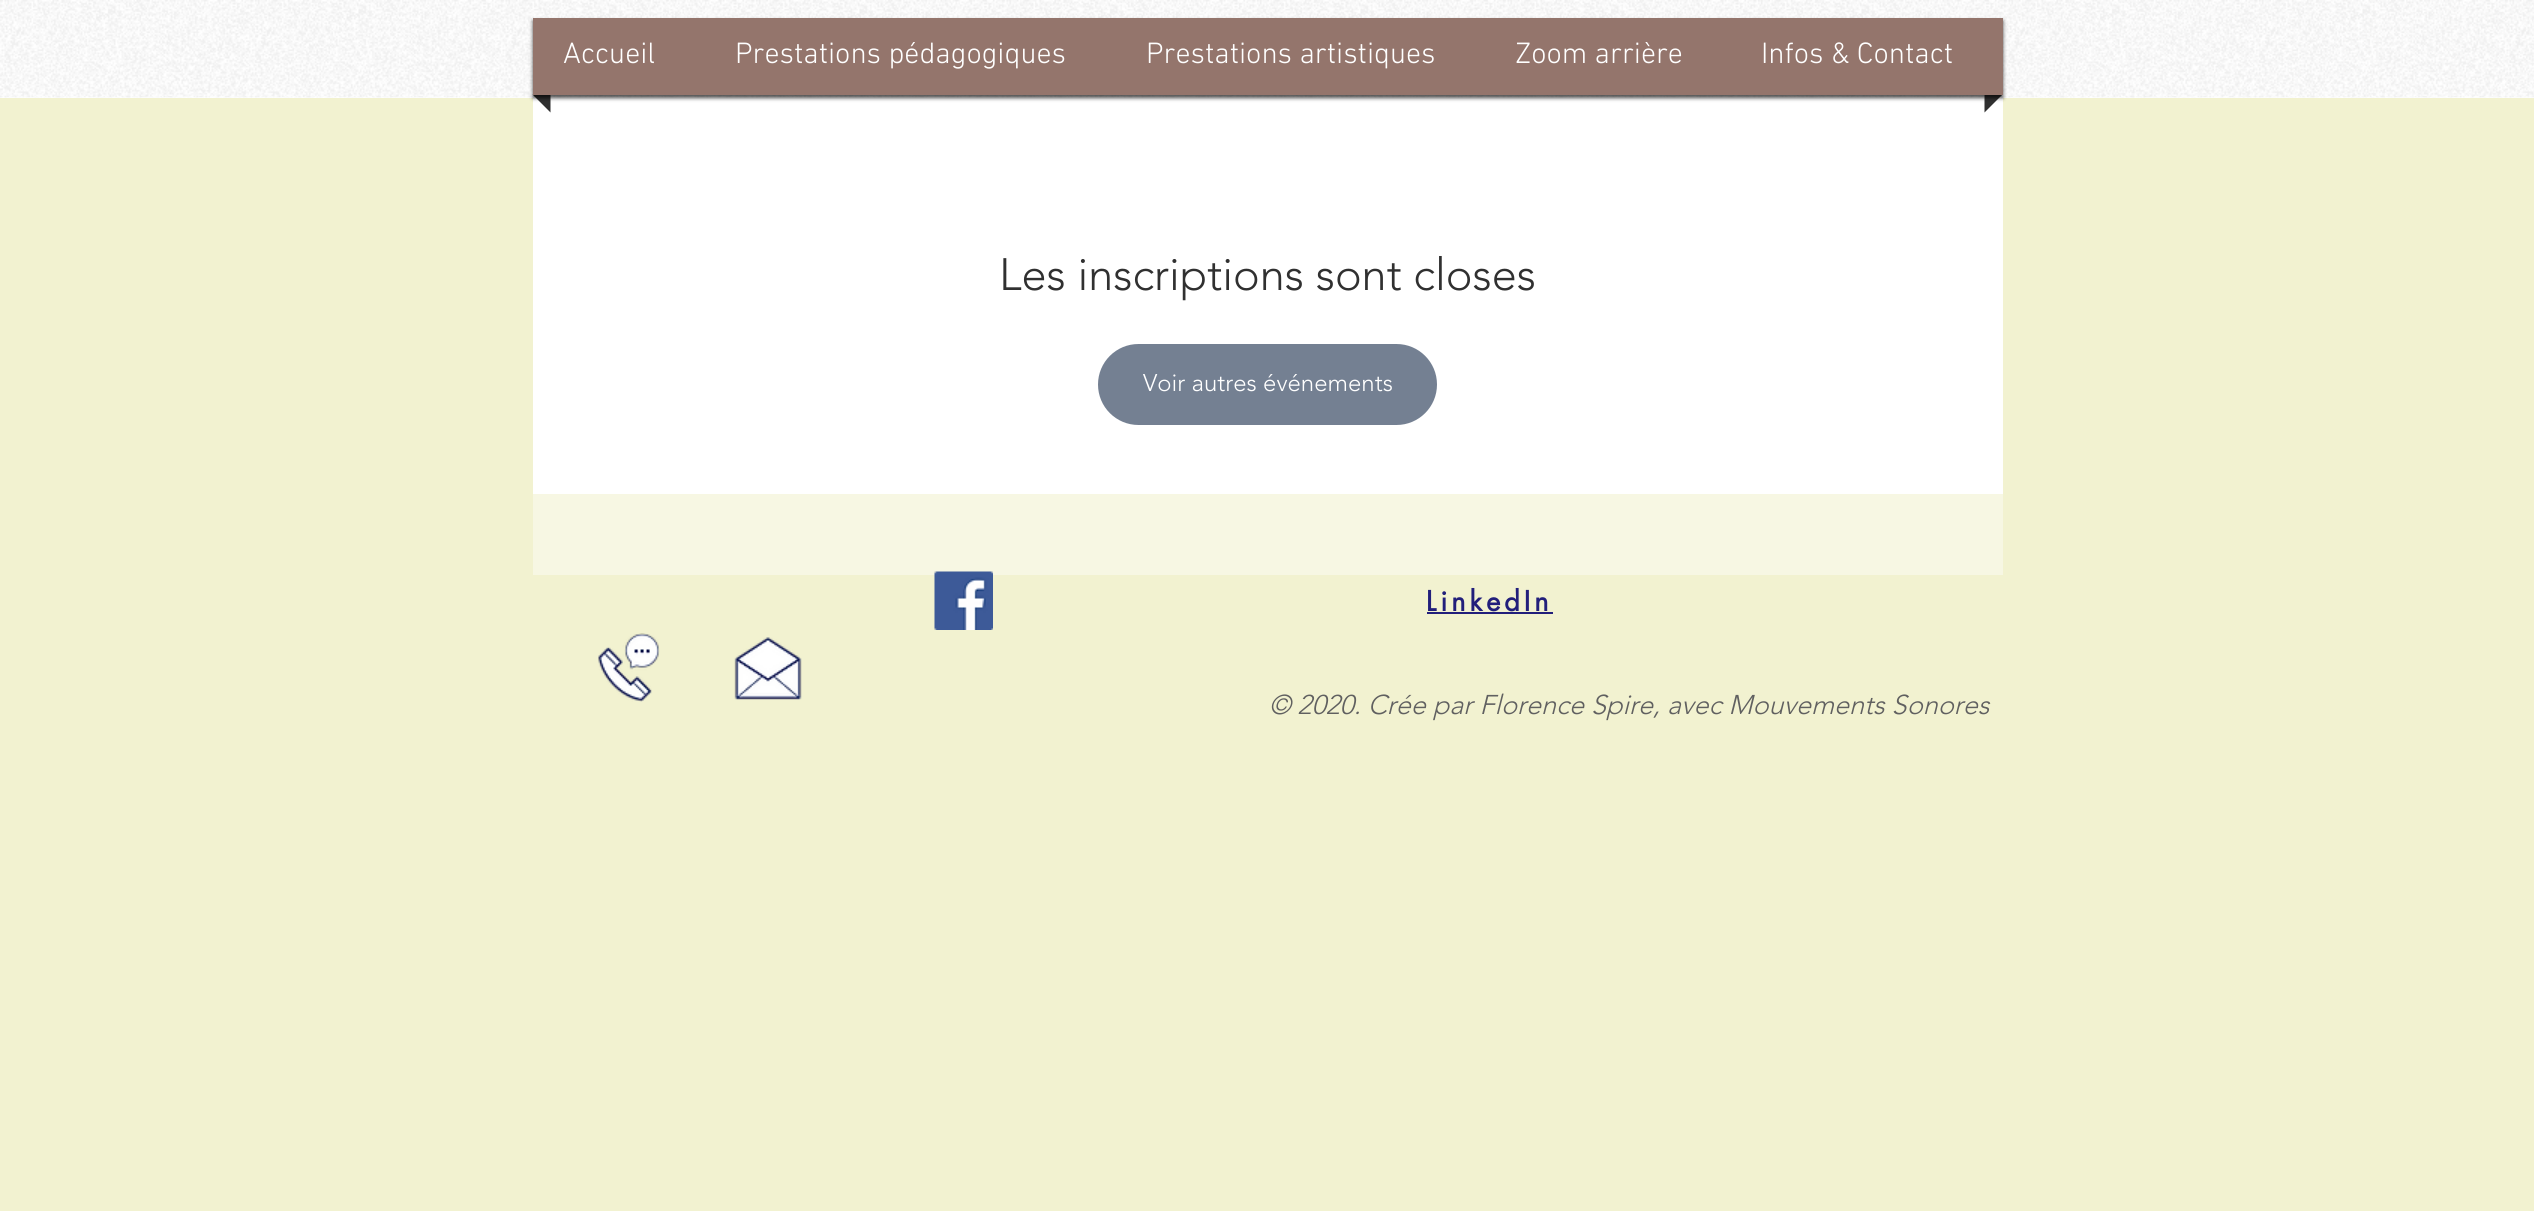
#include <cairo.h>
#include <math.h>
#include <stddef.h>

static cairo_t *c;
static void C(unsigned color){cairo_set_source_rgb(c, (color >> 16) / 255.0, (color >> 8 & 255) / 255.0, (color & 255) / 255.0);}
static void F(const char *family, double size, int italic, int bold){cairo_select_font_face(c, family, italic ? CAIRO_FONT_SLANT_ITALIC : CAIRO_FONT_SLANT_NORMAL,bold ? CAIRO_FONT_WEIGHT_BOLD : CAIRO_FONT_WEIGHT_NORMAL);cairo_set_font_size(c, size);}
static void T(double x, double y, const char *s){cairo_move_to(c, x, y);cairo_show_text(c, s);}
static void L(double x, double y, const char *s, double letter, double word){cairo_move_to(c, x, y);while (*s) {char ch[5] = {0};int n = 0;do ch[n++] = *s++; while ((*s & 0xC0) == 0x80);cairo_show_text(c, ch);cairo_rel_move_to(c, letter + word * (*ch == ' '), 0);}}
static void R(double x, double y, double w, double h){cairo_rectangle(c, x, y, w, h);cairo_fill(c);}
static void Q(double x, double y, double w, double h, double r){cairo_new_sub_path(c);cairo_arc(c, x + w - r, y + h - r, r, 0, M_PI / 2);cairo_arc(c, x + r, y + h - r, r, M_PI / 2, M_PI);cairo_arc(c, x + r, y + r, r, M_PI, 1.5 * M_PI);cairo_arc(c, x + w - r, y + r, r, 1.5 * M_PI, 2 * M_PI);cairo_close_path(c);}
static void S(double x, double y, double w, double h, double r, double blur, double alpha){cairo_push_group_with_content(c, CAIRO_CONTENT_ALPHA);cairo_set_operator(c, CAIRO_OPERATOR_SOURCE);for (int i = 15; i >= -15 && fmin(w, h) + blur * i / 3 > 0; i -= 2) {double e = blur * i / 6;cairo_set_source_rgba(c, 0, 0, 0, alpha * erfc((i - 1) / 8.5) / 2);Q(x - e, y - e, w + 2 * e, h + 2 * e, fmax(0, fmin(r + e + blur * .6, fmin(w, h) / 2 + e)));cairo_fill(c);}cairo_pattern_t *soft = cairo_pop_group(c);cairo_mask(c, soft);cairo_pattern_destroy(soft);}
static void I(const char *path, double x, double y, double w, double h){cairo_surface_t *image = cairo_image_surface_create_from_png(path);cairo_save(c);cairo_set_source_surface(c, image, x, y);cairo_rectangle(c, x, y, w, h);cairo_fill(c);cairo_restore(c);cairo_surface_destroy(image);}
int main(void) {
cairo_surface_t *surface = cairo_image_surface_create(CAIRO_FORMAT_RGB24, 2534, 1211);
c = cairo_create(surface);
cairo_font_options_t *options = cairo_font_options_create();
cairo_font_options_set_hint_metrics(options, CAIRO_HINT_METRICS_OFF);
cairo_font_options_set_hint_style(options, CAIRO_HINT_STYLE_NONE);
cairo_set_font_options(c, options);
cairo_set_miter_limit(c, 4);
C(0xf2f2d0);
cairo_paint(c);
C(0xffffff);
R(0,0,2534,98);
I("1.png",0,0,2534,98);
R(533,98,1470,396);
C(0x303030);
cairo_new_path(c);
cairo_move_to(c,532.5,94.5);
cairo_line_to(c,550.5,94.5);
cairo_line_to(c,550.5,112.5);
cairo_close_path(c);
cairo_fill(c);
cairo_new_path(c);
cairo_move_to(c,1984.5,94.5);
cairo_line_to(c,2002.5,94.5);
cairo_line_to(c,1984.5,112.5);
cairo_close_path(c);
cairo_fill(c);
C(0x000000);
S(533,21,1470,77,0,2,.7);
C(0x94756c);
R(533,18,1470,77);
F("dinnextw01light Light",30,0,0);
C(0xffffff);
T(563,63,"Accueil");
T(735,63,"Prestations pédagogiques");
T(1146,63,"Prestations artistiques");
T(1515,63,"Zoom arrière");
T(1761,63,"Infos & Contact");
C(0xf7f7e3);
R(533,494,1470,81);
F("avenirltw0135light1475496 Light",45,0,0);
C(0x303030);
T(999,290,"Les inscriptions sont closes");
C(0x748092);
Q(1098,344,339,81,40.5);
cairo_fill(c);
F("avenirltw0135light1475496 Light",24,0,0);
C(0xffffff);
T(1143,391,"Voir autres événements");
I("2.png",934,571,59,59);
F("futura",27,0,1);
C(0x221f7b);
L(1426,611,"LinkedIn",4,0);
R(1427,612,126,2);
I("3.png",598,633,62,69);
I("4.png",734,637,68,63);
F("avenirltw0135light1475496 Light",27,1,0);
C(0x606060);
T(1269,714,"© 2020. Crée par Florence Spire, avec Mouvements Sonores");
cairo_surface_write_to_png(surface, "o.png");
cairo_font_options_destroy(options);
cairo_destroy(c);
cairo_surface_destroy(surface);
return 0;
}
